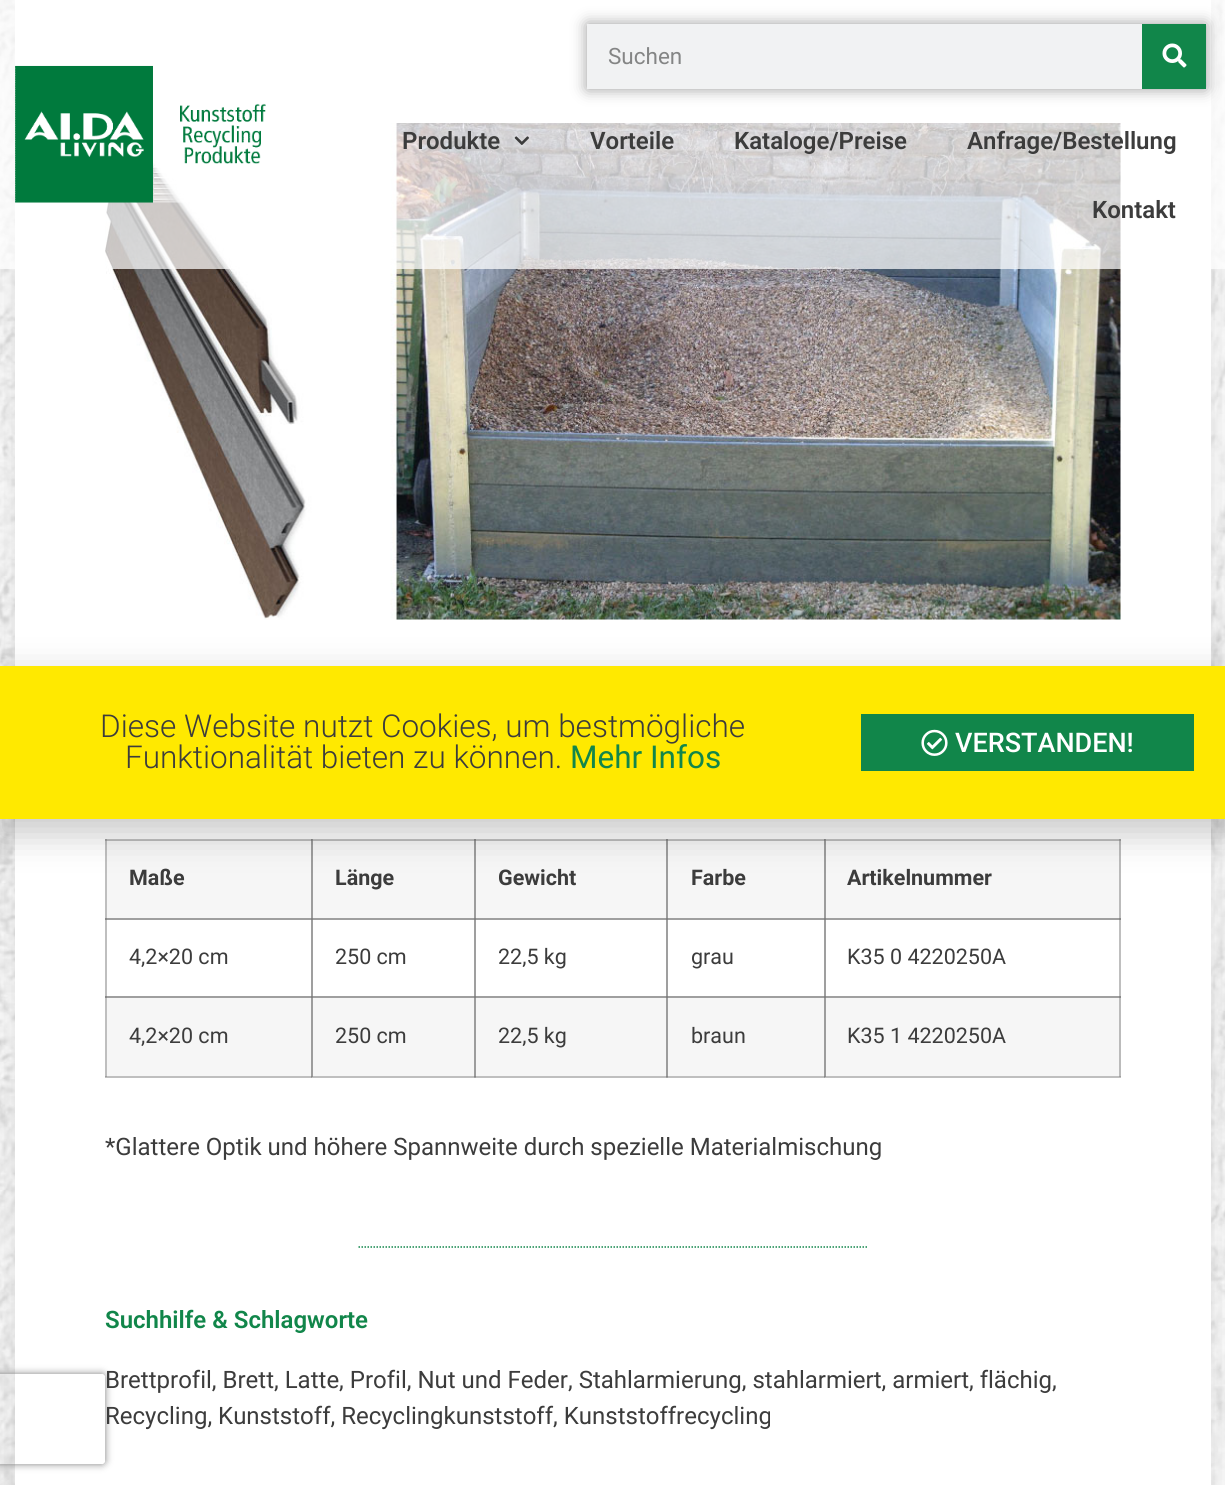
#include <cairo.h>
#include <math.h>
#include <stddef.h>

static cairo_t *c;
static void C(unsigned color){cairo_set_source_rgb(c, (color >> 16) / 255.0, (color >> 8 & 255) / 255.0, (color & 255) / 255.0);}
static void F(const char *family, double size, int italic, int bold){cairo_select_font_face(c, family, italic ? CAIRO_FONT_SLANT_ITALIC : CAIRO_FONT_SLANT_NORMAL,bold ? CAIRO_FONT_WEIGHT_BOLD : CAIRO_FONT_WEIGHT_NORMAL);cairo_set_font_size(c, size);}
static void T(double x, double y, const char *s){cairo_move_to(c, x, y);cairo_show_text(c, s);}
static void R(double x, double y, double w, double h){cairo_rectangle(c, x, y, w, h);cairo_fill(c);}
static void Q(double x, double y, double w, double h, double r){cairo_new_sub_path(c);cairo_arc(c, x + w - r, y + h - r, r, 0, M_PI / 2);cairo_arc(c, x + r, y + h - r, r, M_PI / 2, M_PI);cairo_arc(c, x + r, y + r, r, M_PI, 1.5 * M_PI);cairo_arc(c, x + w - r, y + r, r, 1.5 * M_PI, 2 * M_PI);cairo_close_path(c);}
static void S(double x, double y, double w, double h, double r, double blur, double alpha){cairo_push_group_with_content(c, CAIRO_CONTENT_ALPHA);cairo_set_operator(c, CAIRO_OPERATOR_SOURCE);for (int i = 15; i >= -15 && fmin(w, h) + blur * i / 3 > 0; i -= 2) {double e = blur * i / 6;cairo_set_source_rgba(c, 0, 0, 0, alpha * erfc((i - 1) / 8.5) / 2);Q(x - e, y - e, w + 2 * e, h + 2 * e, fmax(0, fmin(r + e + blur * .6, fmin(w, h) / 2 + e)));cairo_fill(c);}cairo_pattern_t *soft = cairo_pop_group(c);cairo_mask(c, soft);cairo_pattern_destroy(soft);}
static void I(const char *path, double x, double y, double w, double h){cairo_surface_t *image = cairo_image_surface_create_from_png(path);cairo_save(c);cairo_set_source_surface(c, image, x, y);cairo_rectangle(c, x, y, w, h);cairo_fill(c);cairo_restore(c);cairo_surface_destroy(image);}
int main(void) {
cairo_surface_t *surface = cairo_image_surface_create(CAIRO_FORMAT_RGB24, 1225, 1485);
c = cairo_create(surface);
cairo_font_options_t *options = cairo_font_options_create();
cairo_font_options_set_hint_metrics(options, CAIRO_HINT_METRICS_OFF);
cairo_font_options_set_hint_style(options, CAIRO_HINT_STYLE_NONE);
cairo_set_font_options(c, options);
cairo_set_miter_limit(c, 4);
C(0xffffff);
cairo_paint(c);
I("1.png",0,0,1225,1485);
C(0x000000);
S(15,-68,1196,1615,0,22.5,.13);
C(0xffffff);
R(15,0,1196,1485);
I("6.png",105,123,1016,497);
cairo_set_source_rgba(c,1,1,1,0.72);
R(0,0,1225,269);
I("2.png",15,65,251,138);
C(0x9b9b9b);
S(587,24,619,65,0,7.5,1);
C(0xf1f2f3);
R(587,24,555,65);
F("Roboto",22.5,0,0);
C(0x848585);
T(608,64,"Suchen");
C(0x11864a);
R(1142,24,64,65);
I("3.png",1162,43,25,25);
F("Roboto SemiBold",24,0,0);
C(0x3c3c3c);
T(402,149,"Produkte");
I("4.png",514,136,15,9);
T(590,149,"Vorteile");
T(734,149,"Kataloge/Preise");
T(967,149,"Anfrage/Bestellung");
T(1092,218,"Kontakt");
C(0xf6f6f6);
R(107,840,1014,78);
cairo_set_source_rgba(c,0.502,0.502,0.502,0.5);
R(824,839,297,2);
C(0xc0c0c0);
R(824,918,297,2);
R(824,996,297,2);
C(0xf6f6f6);
R(107,998,1014,78);
cairo_set_source_rgba(c,0.502,0.502,0.502,0.5);
R(1119,996,2,81);
R(1119,918,2,80);
R(1119,839,2,81);
R(824,1076,297,2);
R(824,996,2,81);
R(666,996,159,2);
R(824,996,2,81);
R(824,996,297,2);
R(824,918,2,80);
R(666,918,159,2);
R(824,918,2,80);
R(824,918,297,2);
R(824,839,2,81);
R(666,839,159,2);
R(824,839,2,81);
R(666,1076,159,2);
R(666,996,2,81);
R(474,996,194,2);
R(666,996,2,81);
R(666,996,159,2);
R(666,918,2,80);
R(474,918,194,2);
R(666,918,2,80);
R(666,918,159,2);
R(666,839,2,81);
R(474,839,194,2);
R(666,839,2,81);
R(474,1076,194,2);
R(474,996,2,81);
R(311,996,165,2);
R(474,996,2,81);
R(474,996,194,2);
R(474,918,2,80);
R(311,918,165,2);
R(474,918,2,80);
R(474,918,194,2);
R(474,839,2,81);
R(311,839,165,2);
R(474,839,2,81);
R(311,1076,165,2);
R(311,996,2,81);
R(105,996,207,2);
R(311,996,2,81);
R(311,996,165,2);
R(311,918,2,80);
R(105,918,207,2);
R(311,918,2,80);
R(311,918,165,2);
R(311,839,2,81);
R(105,839,207,2);
R(311,839,2,81);
R(105,1076,207,2);
R(105,996,2,81);
R(105,996,207,2);
R(105,918,2,80);
R(105,918,207,2);
R(105,839,2,81);
C(0x000000);
S(-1,674,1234,162,0,17,.2);
C(0xffe900);
R(0,666,1225,153);
F("Roboto Light",31.5,0,0);
C(0x3c3c3c);
T(100,737,"Diese Website nutzt Cookies, um bestmögliche");
T(125,768,"Funktionalität bieten zu können.");
F("Roboto",31.5,0,0);
C(0x11864a);
T(570,768,"Mehr Infos");
R(861,714,333,57);
I("5.png",921,729,27,27);
F("Roboto Medium",27,0,0);
C(0xffffff);
T(955,752,"VERSTANDEN!");
cairo_save(c);
cairo_set_fill_rule(c,CAIRO_FILL_RULE_EVEN_ODD);
cairo_new_path(c);
cairo_move_to(c,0,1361);
cairo_line_to(c,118,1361);
cairo_line_to(c,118,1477);
cairo_line_to(c,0,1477);
cairo_close_path(c);
cairo_move_to(c,-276,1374);
cairo_line_to(c,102,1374);
cairo_curve_to(c,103.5,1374,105,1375.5,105,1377);
cairo_line_to(c,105,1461);
cairo_curve_to(c,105,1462.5,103.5,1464,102,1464);
cairo_line_to(c,-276,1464);
cairo_curve_to(c,-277.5,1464,-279,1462.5,-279,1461);
cairo_line_to(c,-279,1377);
cairo_curve_to(c,-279,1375.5,-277.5,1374,-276,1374);
cairo_close_path(c);
cairo_clip(c);
C(0x808080);
S(-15,1374,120,90,3,4,1);
cairo_restore(c);
F("Roboto",21.5,0,1);
C(0x3c3c3c);
T(129,885,"Maße");
T(335,885,"Länge");
T(498,885,"Gewicht");
T(691,885,"Farbe");
T(847,885,"Artikelnummer");
F("Roboto",21.5,0,0);
T(129,964,"4,2×20 cm");
T(335,964,"250 cm");
T(498,964,"22,5 kg");
T(691,964,"grau");
T(847,964,"K35 0 4220250A");
T(129,1043,"4,2×20 cm");
T(335,1043,"250 cm");
T(498,1043,"22,5 kg");
T(691,1043,"braun");
T(847,1043,"K35 1 4220250A");
F("Roboto",24,0,0);
T(105,1155,"*Glattere Optik und höhere Spannweite durch spezielle Materialmischung");
cairo_new_path(c);
cairo_move_to(c,358.5,1247);
cairo_line_to(c,867,1247);
C(0x11864a);
cairo_set_line_width(c,1.5);
cairo_set_dash(c,(double[]){1.5,1.5},2,0);
cairo_stroke(c);
F("Roboto SemiBold",24,0,0);
T(105,1328,"Suchhilfe & Schlagworte");
F("Roboto",24,0,0);
C(0x3c3c3c);
T(105,1388,"Brettprofil, Brett, Latte, Profil, Nut und Feder, Stahlarmierung, stahlarmiert, armiert, flächig,");
T(105,1424,"Recycling, Kunststoff, Recyclingkunststoff, Kunststoffrecycling");
cairo_surface_write_to_png(surface, "o.png");
cairo_font_options_destroy(options);
cairo_destroy(c);
cairo_surface_destroy(surface);
return 0;
}
